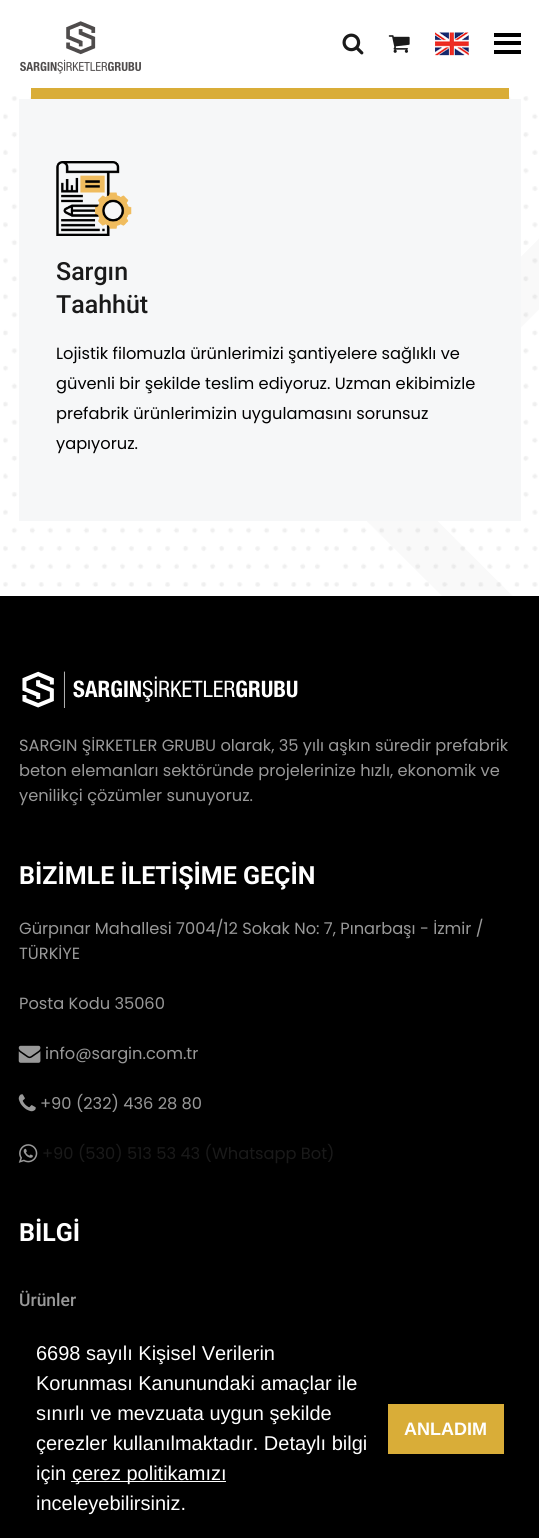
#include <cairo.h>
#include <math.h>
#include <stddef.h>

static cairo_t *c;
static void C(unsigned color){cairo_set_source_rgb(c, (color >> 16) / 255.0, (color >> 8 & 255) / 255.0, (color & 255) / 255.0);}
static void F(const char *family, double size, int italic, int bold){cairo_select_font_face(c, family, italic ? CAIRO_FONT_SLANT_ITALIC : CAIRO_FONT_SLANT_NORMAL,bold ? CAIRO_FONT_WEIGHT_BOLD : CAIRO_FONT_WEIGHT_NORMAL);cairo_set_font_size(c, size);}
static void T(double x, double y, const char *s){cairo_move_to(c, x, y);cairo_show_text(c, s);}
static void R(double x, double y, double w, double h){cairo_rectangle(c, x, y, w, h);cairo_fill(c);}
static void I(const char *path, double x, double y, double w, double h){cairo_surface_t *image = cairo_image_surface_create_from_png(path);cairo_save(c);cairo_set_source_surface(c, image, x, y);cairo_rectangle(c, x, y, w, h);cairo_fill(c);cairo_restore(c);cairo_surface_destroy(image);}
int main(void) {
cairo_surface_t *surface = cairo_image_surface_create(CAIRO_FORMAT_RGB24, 539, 1538);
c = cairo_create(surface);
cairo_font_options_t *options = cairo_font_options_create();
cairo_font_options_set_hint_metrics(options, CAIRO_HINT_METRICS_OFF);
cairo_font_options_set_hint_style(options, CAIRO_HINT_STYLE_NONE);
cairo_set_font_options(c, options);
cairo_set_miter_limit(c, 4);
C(0xffffff);
cairo_paint(c);
I("1.png",20,21,121,53);
I("2.png",342,33,22,22);
I("3.png",388,35,22,18);
I("4.png",435,32,34,24);
C(0x000000);
R(494,33,27,4);
R(494,41,27,4);
R(494,50,27,4);
I("5.png",3,96,535,491);
cairo_new_path(c);
cairo_move_to(c,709.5,103.5);
cairo_line_to(c,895.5,289.5);
cairo_line_to(c,533,651.5);
cairo_line_to(c,347,466);
cairo_close_path(c);
cairo_set_source_rgba(c,0.749,0.749,0.749,0.1);
cairo_set_line_width(c,50);
cairo_stroke(c);
C(0xf6f7f8);
R(19,99,502,422);
C(0xd9ad38);
R(31,88,478,11);
I("6.png",56,161,76,75);
F("Roboto Medium",25,0,0);
C(0x1a1a1a);
T(56,280,"Sargın");
T(56,313,"Taahhüt");
F("Poppins",16.25,0,0);
C(0x000000);
T(56,359,"Lojistik filomuzla ürünlerimizi şantiyelere sağlıklı ve");
T(56,389,"güvenli bir şekilde teslim ediyoruz. Uzman ekibimizle");
T(56,419,"prefabrik ürünlerimizin uygulamasını sorunsuz");
T(56,449,"yapıyoruz.");
R(0,596,539,942);
I("7.png",22,671,276,37);
C(0x999999);
T(19,751,"SARGIN ŞİRKETLER GRUBU olarak, 35 yılı aşkın süredir prefabrik");
T(19,776,"beton elemanları sektöründe projelerinize hızlı, ekonomik ve");
T(19,801,"yenilikçi çözümler sunuyoruz.");
F("Roboto",25,0,1);
C(0xffffff);
T(19,884,"BİZİMLE İLETİŞİME GEÇİN");
F("Poppins",16.25,0,0);
C(0x999999);
T(19,934,"Gürpınar Mahallesi 7004/12 Sokak No: 7, Pınarbaşı - İzmir /");
T(19,959,"TÜRKİYE");
T(19,1009,"Posta Kodu 35060");
I("8.png",18,1045,23,18);
T(45,1059,"info@sargin.com.tr");
I("9.png",18,1094,18,18);
T(40,1109,"+90 (232) 436 28 80");
I("10.png",18,1144,20,19);
C(0x1a1a1a);
T(42,1159,"+90 (530) 513 53 43 (Whatsapp Bot)");
F("Roboto",25,0,1);
C(0xffffff);
T(19,1241,"BİLGİ");
F("Roboto Medium",17.5,0,0);
C(0x999999);
T(19,1306,"Ürünler");
F("Liberation Sans",20,0,0);
C(0xffffff);
T(36,1360,"6698 sayılı Kişisel Verilerin");
T(36,1390,"Korunması Kanunundaki amaçlar ile");
T(36,1420,"sınırlı ve mevzuata uygun şekilde");
T(36,1450,"çerezler kullanılmaktadır. Detaylı bilgi");
T(36,1480,"için");
R(71,1481,155,1);
T(72,1480,"çerez politikamızı");
T(36,1510,"inceleyebilirsiniz.");
C(0xd9ad38);
R(388,1404,116,50);
F("Liberation Sans",18,0,1);
C(0xffffff);
T(404,1435,"ANLADIM");
cairo_surface_write_to_png(surface, "o.png");
cairo_font_options_destroy(options);
cairo_destroy(c);
cairo_surface_destroy(surface);
return 0;
}
